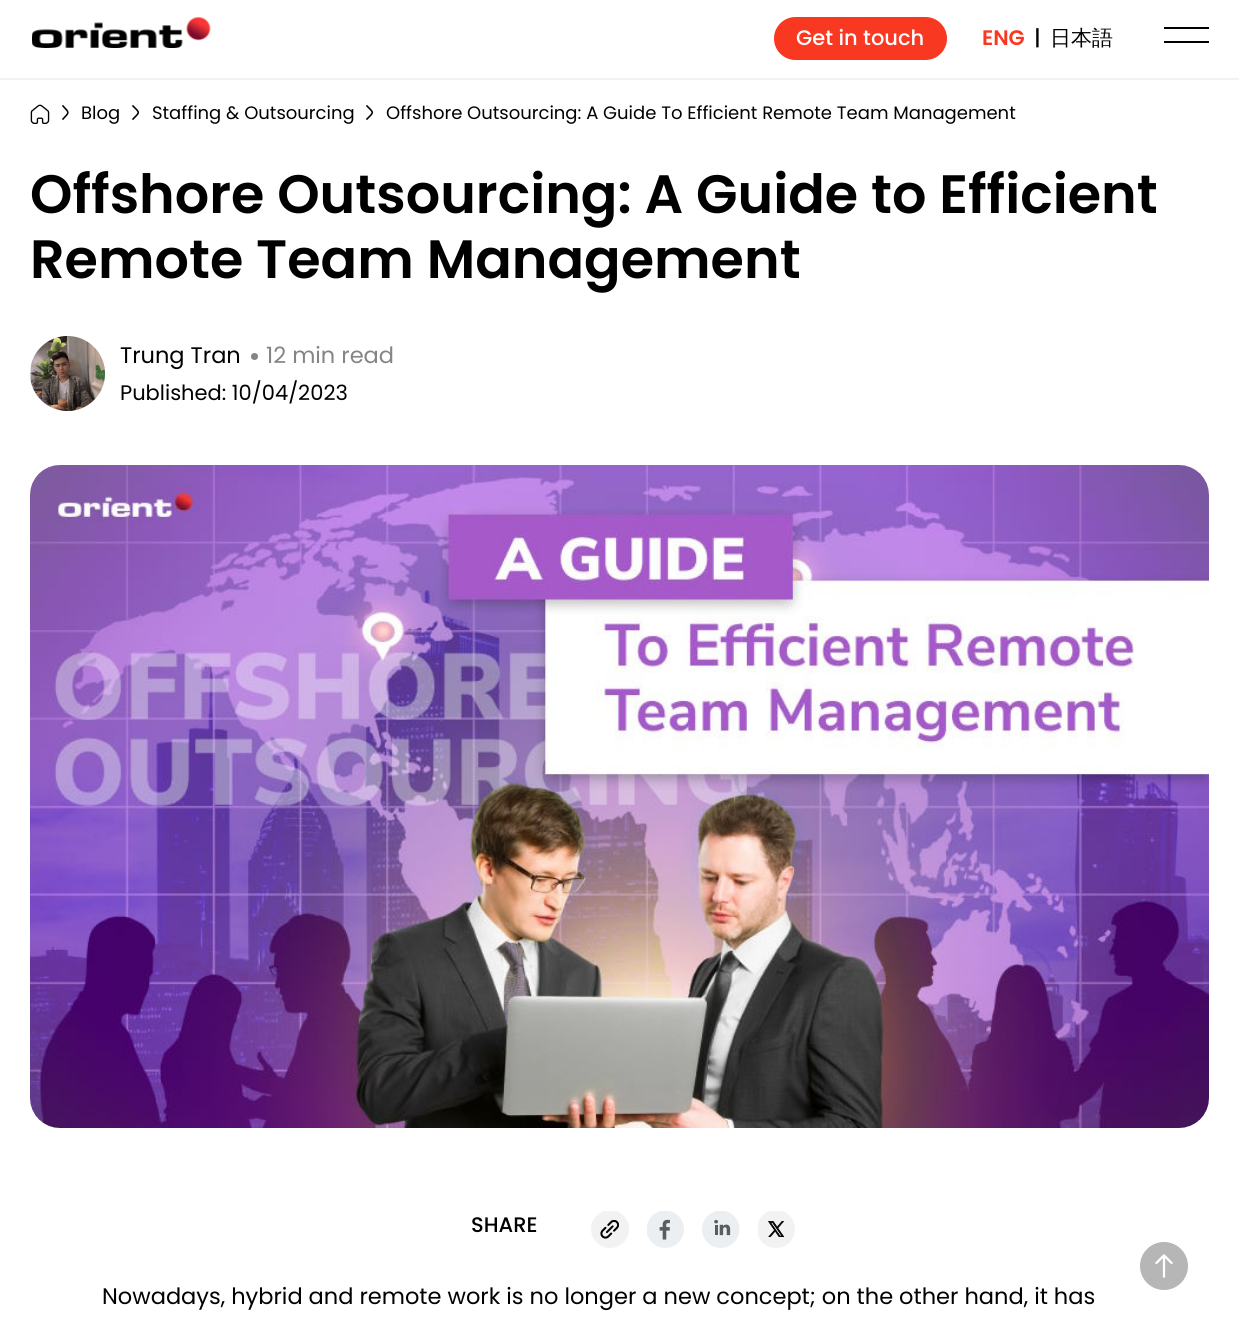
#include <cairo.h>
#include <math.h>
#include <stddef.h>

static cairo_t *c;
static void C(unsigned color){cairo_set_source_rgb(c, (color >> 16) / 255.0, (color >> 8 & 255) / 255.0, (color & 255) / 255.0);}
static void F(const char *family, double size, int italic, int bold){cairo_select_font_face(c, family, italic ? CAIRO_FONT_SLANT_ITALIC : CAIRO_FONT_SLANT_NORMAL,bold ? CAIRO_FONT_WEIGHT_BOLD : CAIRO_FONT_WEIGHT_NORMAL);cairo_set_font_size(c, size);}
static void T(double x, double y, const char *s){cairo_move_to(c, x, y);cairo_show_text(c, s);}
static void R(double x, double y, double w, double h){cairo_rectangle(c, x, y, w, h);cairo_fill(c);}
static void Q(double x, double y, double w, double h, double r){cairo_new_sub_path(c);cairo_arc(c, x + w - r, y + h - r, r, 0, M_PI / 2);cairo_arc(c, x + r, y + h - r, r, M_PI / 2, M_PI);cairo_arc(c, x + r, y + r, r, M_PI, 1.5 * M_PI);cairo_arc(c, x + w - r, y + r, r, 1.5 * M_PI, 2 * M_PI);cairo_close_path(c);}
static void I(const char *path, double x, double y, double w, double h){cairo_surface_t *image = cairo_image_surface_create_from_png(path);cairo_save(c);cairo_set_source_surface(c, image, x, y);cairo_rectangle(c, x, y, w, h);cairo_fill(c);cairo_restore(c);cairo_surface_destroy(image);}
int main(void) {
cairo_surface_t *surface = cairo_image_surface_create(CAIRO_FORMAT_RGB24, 1239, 1326);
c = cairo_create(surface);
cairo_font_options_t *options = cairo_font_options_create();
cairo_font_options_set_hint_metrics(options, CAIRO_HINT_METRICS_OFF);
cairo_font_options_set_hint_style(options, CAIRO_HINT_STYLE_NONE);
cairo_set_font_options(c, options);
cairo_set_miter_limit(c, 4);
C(0xffffff);
cairo_paint(c);
C(0xf2f2f2);
R(0,78,1239,2);
I("1.png",32,16,179,32);
C(0xf93822);
Q(774,17,173,43,21.5);
cairo_fill(c);
F("Poppins Medium",21,0,0);
C(0xffffff);
T(796,45,"Get in touch");
F("Poppins SemiBold",21,0,0);
C(0xf93822);
T(982,45,"ENG");
F("Poppins Medium",21,0,0);
C(0x000000);
T(1034,45,"|");
F("WenQuanYi Zen Hei Medium",21,0,0);
T(1050,45,"日本語");
R(1164,27,45,2);
R(1164,41,45,2);
I("2.png",30,104,20,20);
cairo_new_path(c);
cairo_move_to(c,63,106);
cairo_curve_to(c,69.5,113,69.5,112,63,119);
cairo_set_line_width(c,1.6);
cairo_set_line_cap(c,CAIRO_LINE_CAP_SQUARE);
cairo_set_line_join(c,CAIRO_LINE_JOIN_ROUND);
cairo_stroke(c);
F("Poppins",18,0,0);
T(81,119,"Blog");
cairo_new_path(c);
cairo_move_to(c,133,106);
cairo_curve_to(c,140,113,140,112,133,119);
cairo_stroke(c);
T(152,119,"Staffing & Outsourcing");
cairo_new_path(c);
cairo_move_to(c,367,106);
cairo_curve_to(c,374,113,374,112,367,119);
cairo_stroke(c);
T(386,119,"Offshore Outsourcing: A Guide To Efficient Remote Team Management");
F("Poppins SemiBold",54,0,0);
T(30,213,"Offshore Outsourcing: A Guide to Efficient");
T(30,278,"Remote Team Management");
I("3.png",30,336,75,75);
F("Poppins",22.5,0,0);
T(120,363,"Trung Tran");
C(0x858585);
cairo_new_path(c);
cairo_arc(c,254.5,356.5,3.5,0,2 * M_PI);
cairo_fill(c);
T(266,363,"12 min read");
F("Poppins",21,0,0);
C(0x000000);
T(120,400,"Published: 10/04/2023");
I("4.png",30,465,1179,663);
F("Poppins Medium",21,0,0);
T(471,1232,"SHARE");
I("5.png",591,1211,38,37);
I("6.png",647,1211,37,37);
I("7.png",702,1211,38,37);
I("8.png",758,1211,37,37);
F("Poppins",22.5,0,0);
T(102,1304,"Nowadays, hybrid and remote work is no longer a new concept; on the other hand, it has");
I("9.png",1140,1242,48,48);
cairo_surface_write_to_png(surface, "o.png");
cairo_font_options_destroy(options);
cairo_destroy(c);
cairo_surface_destroy(surface);
return 0;
}
